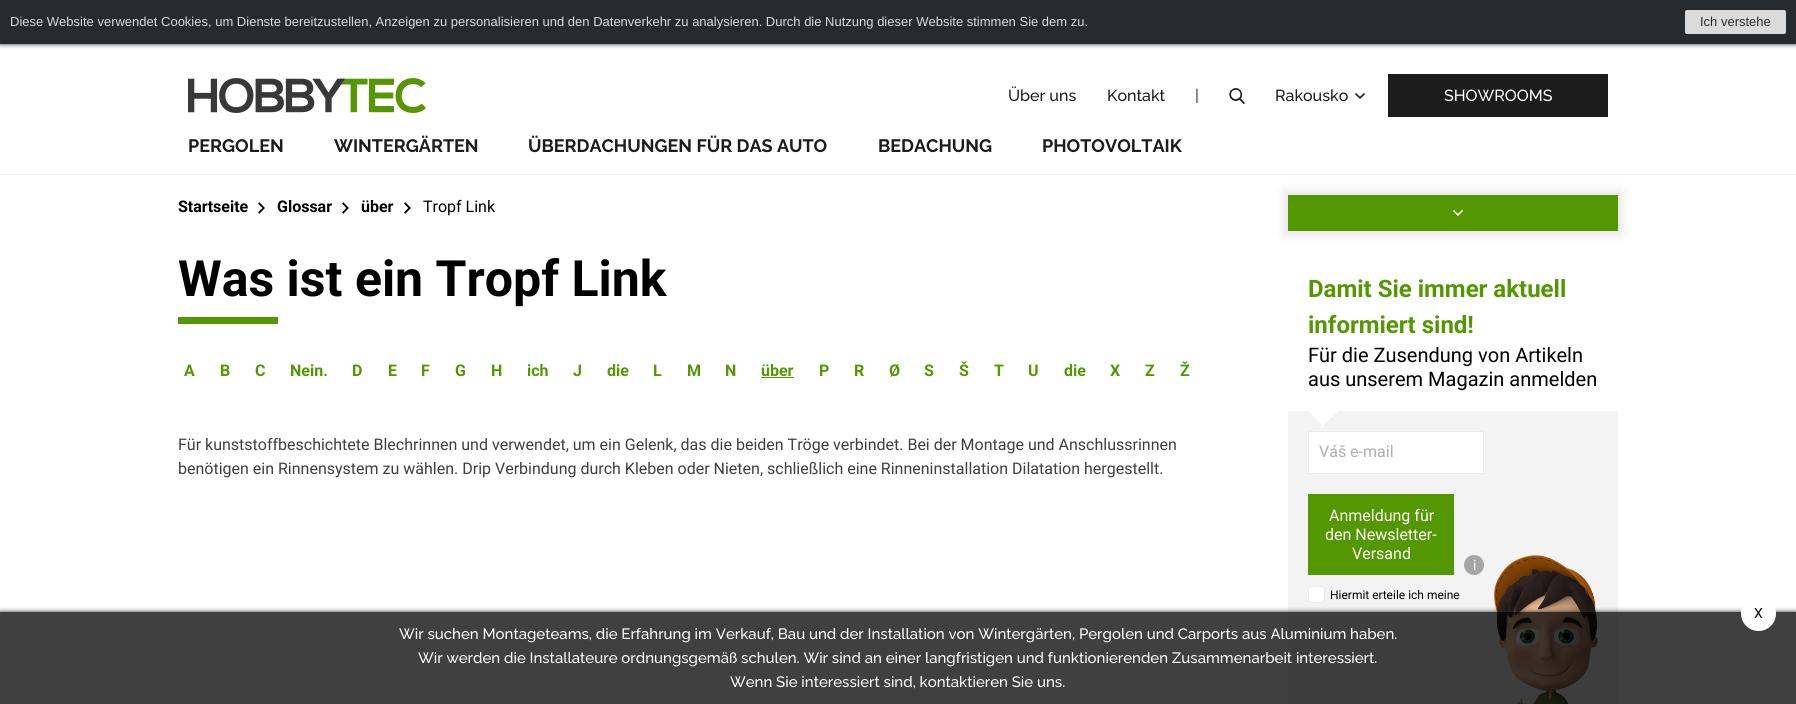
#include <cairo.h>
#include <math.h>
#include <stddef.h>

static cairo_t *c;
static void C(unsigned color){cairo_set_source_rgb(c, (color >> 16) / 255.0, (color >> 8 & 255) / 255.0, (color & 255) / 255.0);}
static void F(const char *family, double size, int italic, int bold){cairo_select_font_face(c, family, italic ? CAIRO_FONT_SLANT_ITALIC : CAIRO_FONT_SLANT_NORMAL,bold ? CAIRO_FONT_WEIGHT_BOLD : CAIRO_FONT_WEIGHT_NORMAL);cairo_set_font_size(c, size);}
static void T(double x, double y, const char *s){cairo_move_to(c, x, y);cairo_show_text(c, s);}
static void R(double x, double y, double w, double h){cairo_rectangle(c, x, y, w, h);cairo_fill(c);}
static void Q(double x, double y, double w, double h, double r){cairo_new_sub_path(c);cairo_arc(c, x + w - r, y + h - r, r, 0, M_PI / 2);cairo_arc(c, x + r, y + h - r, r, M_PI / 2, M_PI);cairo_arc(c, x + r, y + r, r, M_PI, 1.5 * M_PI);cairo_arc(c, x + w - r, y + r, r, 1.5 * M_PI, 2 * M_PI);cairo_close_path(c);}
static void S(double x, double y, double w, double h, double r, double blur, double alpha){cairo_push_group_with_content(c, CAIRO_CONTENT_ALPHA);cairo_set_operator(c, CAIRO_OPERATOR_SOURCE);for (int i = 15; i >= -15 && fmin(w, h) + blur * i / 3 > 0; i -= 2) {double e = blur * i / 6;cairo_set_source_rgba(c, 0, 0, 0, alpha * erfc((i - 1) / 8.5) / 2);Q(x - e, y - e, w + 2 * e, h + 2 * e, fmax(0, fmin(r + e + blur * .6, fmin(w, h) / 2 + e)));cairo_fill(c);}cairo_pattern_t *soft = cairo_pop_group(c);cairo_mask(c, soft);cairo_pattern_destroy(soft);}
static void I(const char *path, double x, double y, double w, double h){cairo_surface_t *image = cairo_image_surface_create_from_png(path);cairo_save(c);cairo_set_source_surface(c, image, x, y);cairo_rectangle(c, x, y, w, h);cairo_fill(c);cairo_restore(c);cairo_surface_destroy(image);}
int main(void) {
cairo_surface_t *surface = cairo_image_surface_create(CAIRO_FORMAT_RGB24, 1796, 704);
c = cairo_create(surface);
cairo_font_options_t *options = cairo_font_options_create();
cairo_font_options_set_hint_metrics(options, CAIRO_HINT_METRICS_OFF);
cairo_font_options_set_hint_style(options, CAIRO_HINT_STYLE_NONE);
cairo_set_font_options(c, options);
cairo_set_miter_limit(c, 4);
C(0xffffff);
cairo_paint(c);
C(0x282b2d);
S(0,0,1796,44,0,2.5,1);
C(0x282b2d);
R(0,0,1796,44);
F("Liberation Sans",13,0,0);
C(0xdbdbdb);
T(10,26,"Diese Website verwendet Cookies, um Dienste bereitzustellen, Anzeigen zu personalisieren und den Datenverkehr zu analysieren. Durch die Nutzung dieser Website stimmen Sie dem zu.");
Q(1685,10,101,24,2);
cairo_fill(c);
C(0x282b2d);
T(1700,26,"Ich verstehe");
C(0xebebeb);
R(0,174,1796,1);
I("1.png",188,78,238,35);
F("Raleway Medium",16,0,0);
C(0x1c1c1c);
T(1008,101,"Über uns");
T(1107,101,"Kontakt");
C(0x404040);
T(1195,101,"|");
I("2.png",1229,88,16,16);
C(0x1c1c1c);
T(1275,101,"Rakousko");
I("3.png",1355,93,10,6);
R(1388,74,220,43);
C(0xffffff);
T(1444,101,"SHOWROOMS");
F("Raleway",18,0,1);
C(0x1c1c1c);
T(188,152,"PERGOLEN");
T(334,152,"WINTERGÄRTEN");
T(528,152,"ÜBERDACHUNGEN FÜR DAS AUTO");
T(878,152,"BEDACHUNG");
T(1042,152,"PHOTOVOLTAIK");
F("Roboto",16,0,1);
C(0x000000);
T(178,212,"Startseite");
I("4.png",258,202,7,12);
T(277,212,"Glossar");
I("4.png",342,202,7,12);
T(361,212,"über");
I("4.png",404,202,7,12);
F("Roboto",16,0,0);
T(423,212,"Tropf Link");
F("Roboto",50,0,1);
T(178,296,"Was ist ein Tropf Link");
C(0x539701);
R(178,317,100,7);
F("Roboto",16,0,1);
T(184,376,"A");
T(220,376,"B");
T(255,376,"C");
T(290,376,"Nein.");
T(352,376,"D");
T(388,376,"E");
T(421,376,"F");
T(455,376,"G");
T(491,376,"H");
T(527,376,"ich");
T(573,376,"J");
T(607,376,"die");
T(653,376,"L");
T(687,376,"M");
T(725,376,"N");
T(761,376,"über");
R(761,377,33,1);
T(819,376,"P");
T(854,376,"R");
T(889,376,"Ø");
T(924,376,"S");
T(959,376,"Š");
T(994,376,"T");
T(1028,376,"U");
T(1064,376,"die");
T(1110,376,"X");
T(1145,376,"Z");
T(1180,376,"Ž");
F("Roboto",16,0,0);
C(0x404040);
T(178,450,"Für kunststoffbeschichtete Blechrinnen und verwendet, um ein Gelenk, das die beiden Tröge verbindet. Bei der Montage und Anschlussrinnen");
T(178,474,"benötigen ein Rinnensystem zu wählen. Drip Verbindung durch Kleben oder Nieten, schließlich eine Rinneninstallation Dilatation hergestellt.");
C(0x000000);
S(1284,191,338,44,0,5,.1);
C(0x539701);
R(1288,195,330,36);
I("5.png",1453,210,10,6);
F("Roboto",24,0,1);
T(1308,297,"Damit Sie immer aktuell");
T(1308,333,"informiert sind!");
F("Roboto",20,0,0);
C(0x000000);
T(1308,362,"Für die Zusendung von Artikeln");
T(1308,386,"aus unserem Magazin anmelden");
C(0xf3f3f3);
R(1288,411,330,293);
C(0xffffff);
cairo_new_path(c);
cairo_move_to(c,1308,411);
cairo_line_to(c,1338,411);
cairo_line_to(c,1323,426);
cairo_close_path(c);
cairo_fill(c);
Q(1308.5,431.5,175,42,1.5);
cairo_fill_preserve(c);
C(0xebebeb);
cairo_set_line_width(c,1);
cairo_stroke(c);
F("Roboto",16,0,0);
C(0xafafaf);
T(1319,457,"Váš e-mail");
C(0x539701);
R(1308,494,146,81);
C(0xffffff);
T(1329,521,"Anmeldung für");
T(1325,540,"den Newsletter-");
T(1352,559,"Versand");
C(0xa6a6a6);
cairo_new_path(c);
cairo_arc(c,1474,565,10,0,2 * M_PI);
cairo_fill(c);
F("Roboto",14,0,0);
C(0xffffff);
T(1473,570,"i");
Q(1308.5,586.5,16,16,3.5);
cairo_fill_preserve(c);
C(0xebebeb);
cairo_stroke(c);
F("Roboto",12,0,0);
C(0x000000);
T(1330,599,"Hiermit erteile ich meine");
I("6.png",1494,555,104,149);
cairo_save(c);
cairo_rectangle(c,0,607,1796,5);
cairo_clip(c);
C(0x282b2d);
S(0,612,1796,92,0,2.5,1);
cairo_restore(c);
cairo_set_source_rgba(c,0,0,0,0.75);
R(0,612,1796,92);
C(0xffffff);
cairo_arc(c,1758.5,613.5,17.5,0,2 * M_PI);
cairo_fill(c);
F("Roboto",14,0,0);
C(0x000000);
T(1754,618,"X");
F("Raleway Medium",15,0,0);
C(0xffffff);
T(399,639,"Wir suchen Montageteams, die Erfahrung im Verkauf, Bau und der Installation von Wintergärten, Pergolen und Carports aus Aluminium haben.");
T(418,663,"Wir werden die Installateure ordnungsgemäß schulen. Wir sind an einer langfristigen und funktionierenden Zusammenarbeit interessiert.");
T(730,687,"Wenn Sie interessiert sind, kontaktieren Sie uns.");
cairo_surface_write_to_png(surface, "o.png");
cairo_font_options_destroy(options);
cairo_destroy(c);
cairo_surface_destroy(surface);
return 0;
}
